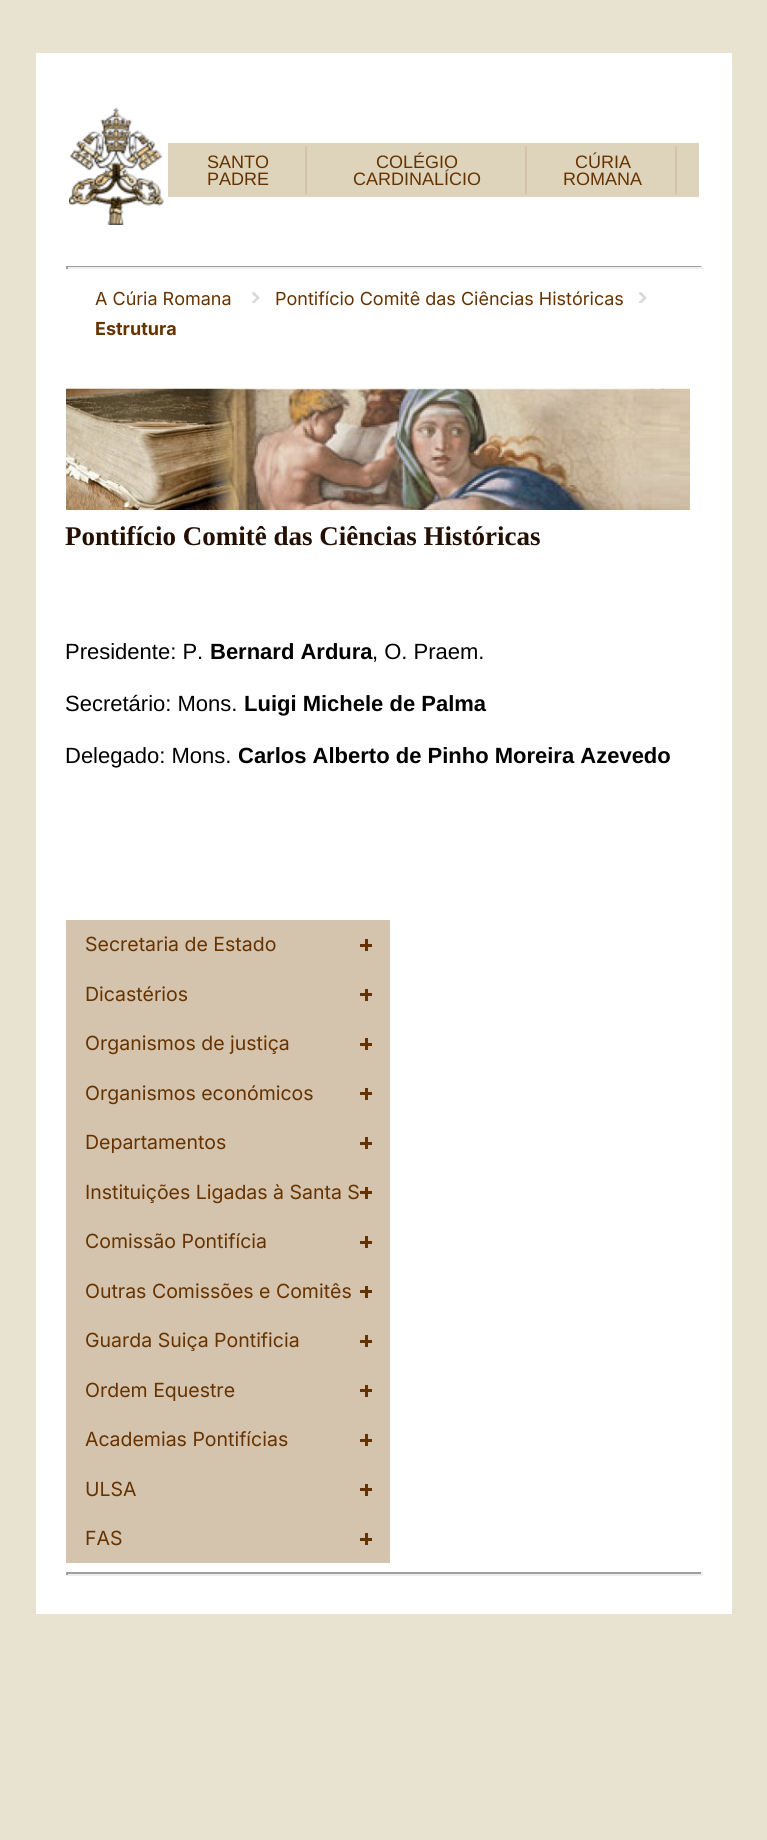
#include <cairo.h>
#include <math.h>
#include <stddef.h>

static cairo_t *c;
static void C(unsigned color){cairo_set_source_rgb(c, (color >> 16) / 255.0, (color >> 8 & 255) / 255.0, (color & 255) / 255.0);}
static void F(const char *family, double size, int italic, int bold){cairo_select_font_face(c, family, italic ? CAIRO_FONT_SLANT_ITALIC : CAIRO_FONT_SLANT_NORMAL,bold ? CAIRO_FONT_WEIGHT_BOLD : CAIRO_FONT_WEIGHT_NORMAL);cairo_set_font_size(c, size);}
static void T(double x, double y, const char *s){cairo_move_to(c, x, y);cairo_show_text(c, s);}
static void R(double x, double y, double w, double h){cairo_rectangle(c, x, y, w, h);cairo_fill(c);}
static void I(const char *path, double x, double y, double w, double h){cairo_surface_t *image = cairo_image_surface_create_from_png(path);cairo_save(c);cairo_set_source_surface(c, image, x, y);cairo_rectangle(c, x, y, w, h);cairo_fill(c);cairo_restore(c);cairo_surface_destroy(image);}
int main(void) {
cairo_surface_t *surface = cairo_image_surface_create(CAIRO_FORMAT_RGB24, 767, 1840);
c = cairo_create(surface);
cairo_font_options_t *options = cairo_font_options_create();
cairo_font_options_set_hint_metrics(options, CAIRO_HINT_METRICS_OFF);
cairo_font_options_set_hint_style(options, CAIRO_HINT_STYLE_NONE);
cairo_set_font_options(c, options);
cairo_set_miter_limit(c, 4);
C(0xe8e2d1);
cairo_paint(c);
C(0xffffff);
R(36,53,696,1561);
I("1.png",69,108,95,117);
C(0xddd4bb);
R(168,143,531,54);
C(0xd3c3ad);
R(305,146,2,48);
F("Liberation Sans",18,0,0);
C(0x663300);
T(207,168,"SANTO");
T(207,185,"PADRE");
C(0xd3c3ad);
R(525,146,2,48);
C(0x663300);
T(376,168,"COLÉGIO");
T(353,185,"CARDINALÍCIO");
C(0xd3c3ad);
R(675,146,2,48);
C(0x663300);
T(575,168,"CÚRIA");
T(563,185,"ROMANA");
C(0x9f9f9f);
R(66,266,636,1);
C(0xeeeeee);
R(701,266,2,3);
R(66,267,636,2);
C(0x9f9f9f);
R(66,266,2,3);
F("Inter",18,0,0);
C(0x663300);
T(95,305,"A Cúria Romana");
I("2.png",252,292,8,11);
T(275,305,"Pontifício Comitê das Ciências Históricas");
I("2.png",639,292,8,11);
F("Inter",18,0,1);
T(95,335,"Estrutura");
I("3.png",66,388,624,122);
F("Liberation Serif",27,0,1);
C(0x240f03);
T(65,545,"Pontifício Comitê das Ciências Históricas");
F("Liberation Sans",22,0,0);
C(0x000000);
T(65,659,"Presidente: P.");
F("Liberation Sans",22,0,1);
T(210,659,"Bernard Ardura");
F("Liberation Sans",22,0,0);
T(372,659,", O. Praem.");
T(65,711,"Secretário: Mons.");
F("Liberation Sans",22,0,1);
T(244,711,"Luigi Michele de Palma");
F("Liberation Sans",22,0,0);
T(65,763,"Delegado: Mons.");
F("Liberation Sans",22,0,1);
T(238,763,"Carlos Alberto de Pinho Moreira Azevedo");
C(0xd4c3ad);
R(66,920,324,643);
F("Inter",19.5,0,0);
C(0x663300);
T(85,951,"Secretaria de Estado");
R(360,944,12,3);
R(365,939,3,12);
T(85,1001,"Dicastérios");
R(360,993,12,3);
R(365,989,3,12);
T(85,1050,"Organismos de justiça");
R(360,1043,12,3);
R(365,1038,3,12);
T(85,1100,"Organismos económicos");
R(360,1092,12,3);
R(365,1088,3,12);
T(85,1149,"Departamentos");
R(360,1142,12,3);
R(365,1137,3,12);
T(85,1199,"Instituições Ligadas à Santa S");
R(360,1191,12,3);
R(365,1187,3,12);
T(85,1248,"Comissão Pontifícia");
R(360,1241,12,3);
R(365,1236,3,12);
T(85,1298,"Outras Comissões e Comitês");
R(360,1290,12,3);
R(365,1286,3,12);
T(85,1347,"Guarda Suiça Pontificia");
R(360,1340,12,3);
R(365,1335,3,12);
T(85,1397,"Ordem Equestre");
R(360,1389,12,3);
R(365,1385,3,12);
T(85,1446,"Academias Pontifícias");
R(360,1439,12,3);
R(365,1434,3,12);
T(85,1496,"ULSA");
R(360,1488,12,3);
R(365,1484,3,12);
T(85,1545,"FAS");
R(360,1538,12,3);
R(365,1533,3,12);
C(0x9f9f9f);
R(66,1572,636,2);
C(0xeeeeee);
R(701,1572,2,3);
R(66,1574,636,2);
C(0x9f9f9f);
R(66,1572,2,3);
cairo_surface_write_to_png(surface, "o.png");
cairo_font_options_destroy(options);
cairo_destroy(c);
cairo_surface_destroy(surface);
return 0;
}
